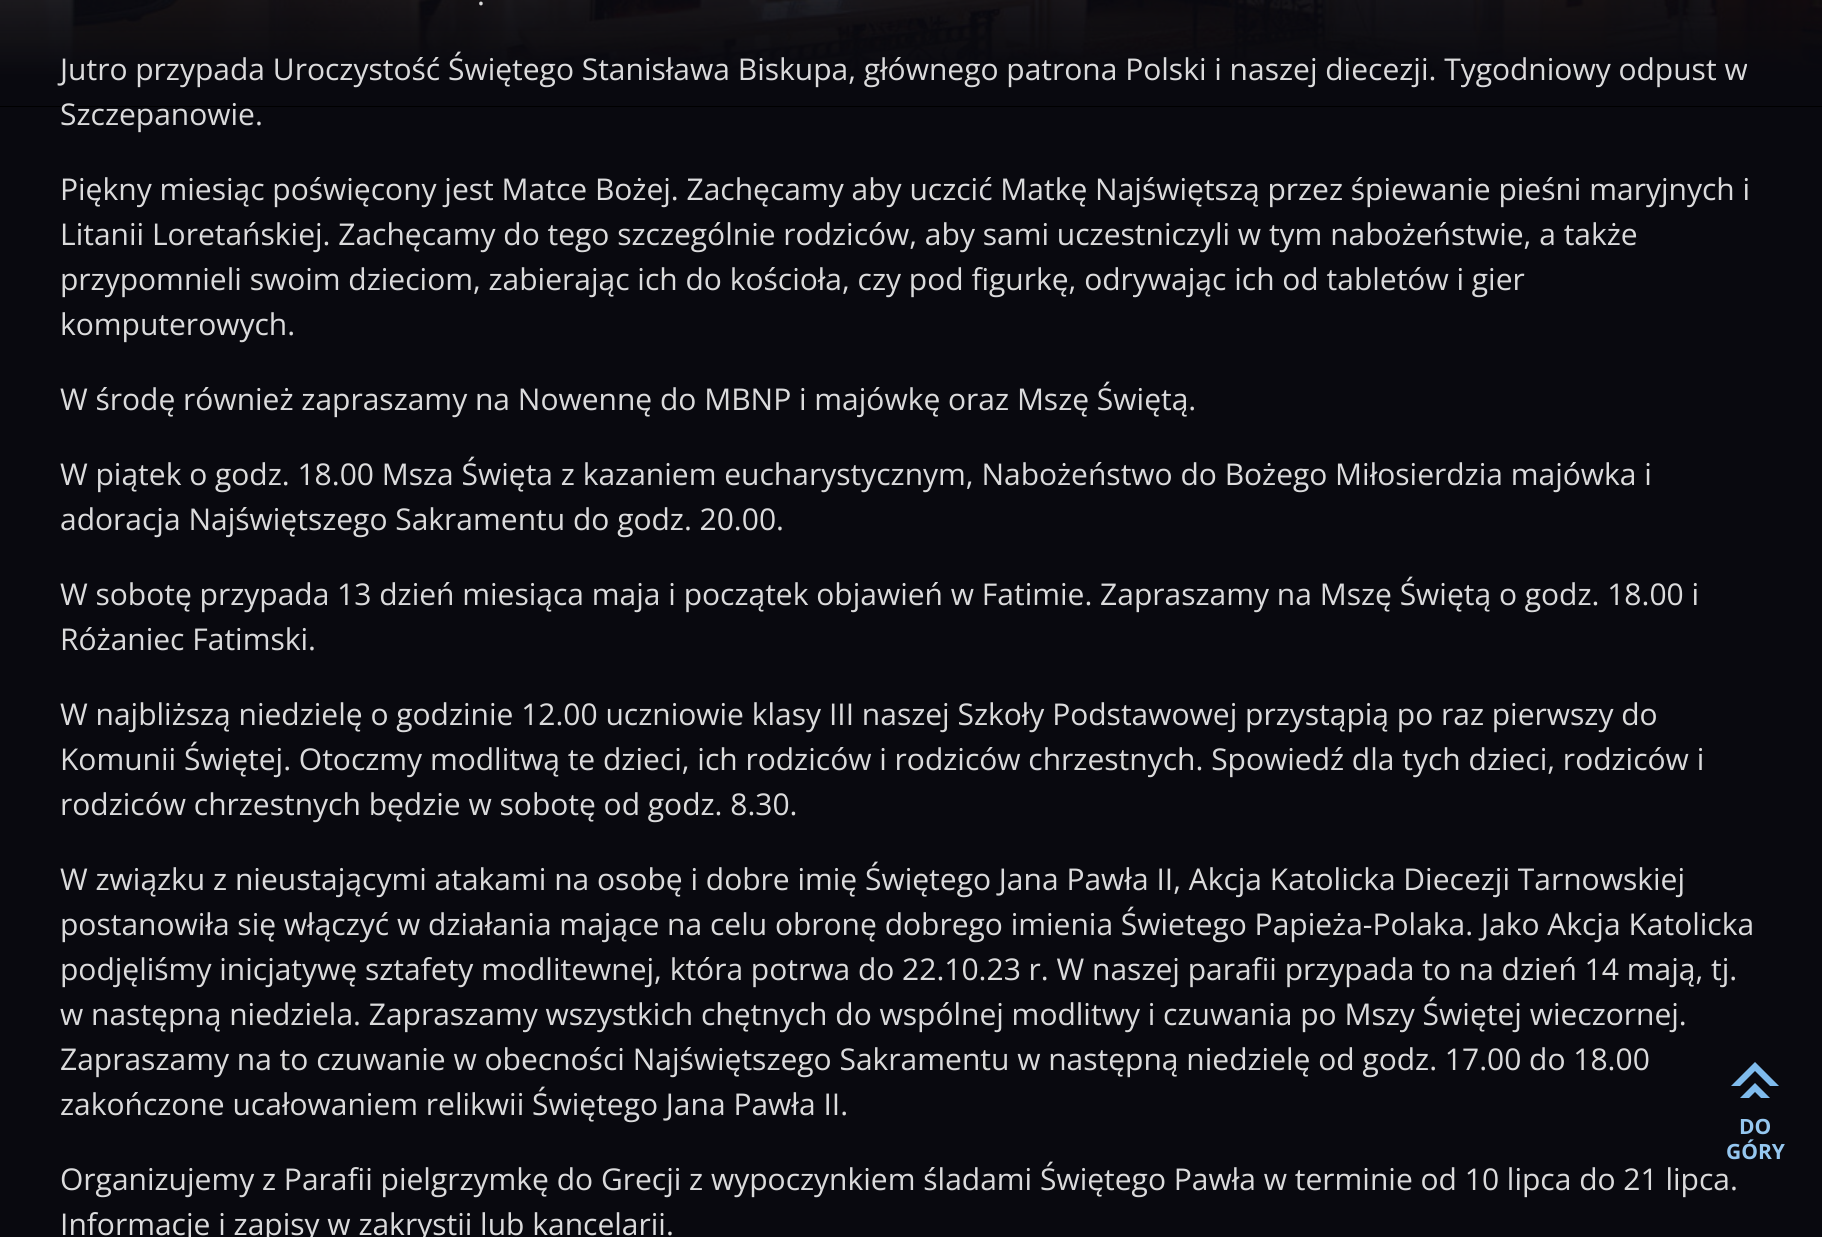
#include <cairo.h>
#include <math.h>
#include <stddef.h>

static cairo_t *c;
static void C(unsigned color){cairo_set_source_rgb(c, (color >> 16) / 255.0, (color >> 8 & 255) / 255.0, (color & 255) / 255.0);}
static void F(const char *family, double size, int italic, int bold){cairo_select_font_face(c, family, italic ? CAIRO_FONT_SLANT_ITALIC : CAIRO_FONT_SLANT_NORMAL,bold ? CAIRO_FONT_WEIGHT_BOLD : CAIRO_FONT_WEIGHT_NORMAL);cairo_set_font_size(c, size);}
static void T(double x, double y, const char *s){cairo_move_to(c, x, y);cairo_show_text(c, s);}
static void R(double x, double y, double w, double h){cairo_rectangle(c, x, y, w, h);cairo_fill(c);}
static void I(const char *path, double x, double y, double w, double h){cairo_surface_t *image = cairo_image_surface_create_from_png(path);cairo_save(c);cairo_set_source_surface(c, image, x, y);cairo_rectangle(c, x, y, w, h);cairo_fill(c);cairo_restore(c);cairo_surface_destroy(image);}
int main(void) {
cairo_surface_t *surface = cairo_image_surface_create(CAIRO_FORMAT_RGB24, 1822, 1237);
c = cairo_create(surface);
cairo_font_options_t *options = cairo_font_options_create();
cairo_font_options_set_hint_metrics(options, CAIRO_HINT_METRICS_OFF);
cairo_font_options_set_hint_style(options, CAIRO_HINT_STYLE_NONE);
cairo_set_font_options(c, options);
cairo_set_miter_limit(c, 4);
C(0x09090f);
cairo_paint(c);
C(0x000000);
R(0,106,1822,1);
I("1.png",0,0,1822,106);
F("Open Sans",30,0,0);
C(0xdbdbdc);
T(477,5,".");
T(60,80,"Jutro przypada Uroczystość Świętego Stanisława Biskupa, głównego patrona Polski i naszej diecezji. Tygodniowy odpust w");
T(60,125,"Szczepanowie.");
T(60,200,"Piękny miesiąc poświęcony jest Matce Bożej. Zachęcamy aby uczcić Matkę Najświętszą przez śpiewanie pieśni maryjnych i");
T(60,245,"Litanii Loretańskiej. Zachęcamy do tego szczególnie rodziców, aby sami uczestniczyli w tym nabożeństwie, a także");
T(60,290,"przypomnieli swoim dzieciom, zabierając ich do kościoła, czy pod figurkę, odrywając ich od tabletów i gier");
T(60,335,"komputerowych.");
T(60,410,"W środę również zapraszamy na Nowennę do MBNP i majówkę oraz Mszę Świętą.");
T(60,485,"W piątek o godz. 18.00 Msza Święta z kazaniem eucharystycznym, Nabożeństwo do Bożego Miłosierdzia majówka i");
T(60,530,"adoracja Najświętszego Sakramentu do godz. 20.00.");
T(60,605,"W sobotę przypada 13 dzień miesiąca maja i początek objawień w Fatimie. Zapraszamy na Mszę Świętą o godz. 18.00 i");
T(60,650,"Różaniec Fatimski.");
T(60,725,"W najbliższą niedzielę o godzinie 12.00 uczniowie klasy III naszej Szkoły Podstawowej przystąpią po raz pierwszy do");
T(60,770,"Komunii Świętej. Otoczmy modlitwą te dzieci, ich rodziców i rodziców chrzestnych. Spowiedź dla tych dzieci, rodziców i");
T(60,815,"rodziców chrzestnych będzie w sobotę od godz. 8.30.");
T(60,890,"W związku z nieustającymi atakami na osobę i dobre imię Świętego Jana Pawła II, Akcja Katolicka Diecezji Tarnowskiej");
T(60,935,"postanowiła się włączyć w działania mające na celu obronę dobrego imienia Świetego Papieża-Polaka. Jako Akcja Katolicka");
T(60,980,"podjęliśmy inicjatywę sztafety modlitewnej, która potrwa do 22.10.23 r. W naszej parafii przypada to na dzień 14 mają, tj.");
T(60,1025,"w następną niedziela. Zapraszamy wszystkich chętnych do wspólnej modlitwy i czuwania po Mszy Świętej wieczornej.");
T(60,1070,"Zapraszamy na to czuwanie w obecności Najświętszego Sakramentu w następną niedzielę od godz. 17.00 do 18.00");
T(60,1115,"zakończone ucałowaniem relikwii Świętego Jana Pawła II.");
T(60,1190,"Organizujemy z Parafii pielgrzymkę do Grecji z wypoczynkiem śladami Świętego Pawła w terminie od 10 lipca do 21 lipca.");
T(60,1235,"Informacje i zapisy w zakrystii lub kancelarii.");
C(0x7fbbed);
cairo_new_path(c);
cairo_move_to(c,1755,1071);
cairo_line_to(c,1740,1086);
cairo_line_to(c,1731,1086);
cairo_line_to(c,1755,1062);
cairo_line_to(c,1779,1086);
cairo_line_to(c,1770,1086);
cairo_close_path(c);
cairo_move_to(c,1755,1083);
cairo_line_to(c,1740,1098);
cairo_line_to(c,1749,1098);
cairo_line_to(c,1755,1092);
cairo_line_to(c,1761,1098);
cairo_line_to(c,1770,1098);
cairo_close_path(c);
cairo_fill(c);
F("Open Sans",21,0,1);
C(0x95c7f0);
T(1739,1134,"DO");
T(1726,1159,"GÓRY");
cairo_surface_write_to_png(surface, "o.png");
cairo_font_options_destroy(options);
cairo_destroy(c);
cairo_surface_destroy(surface);
return 0;
}
